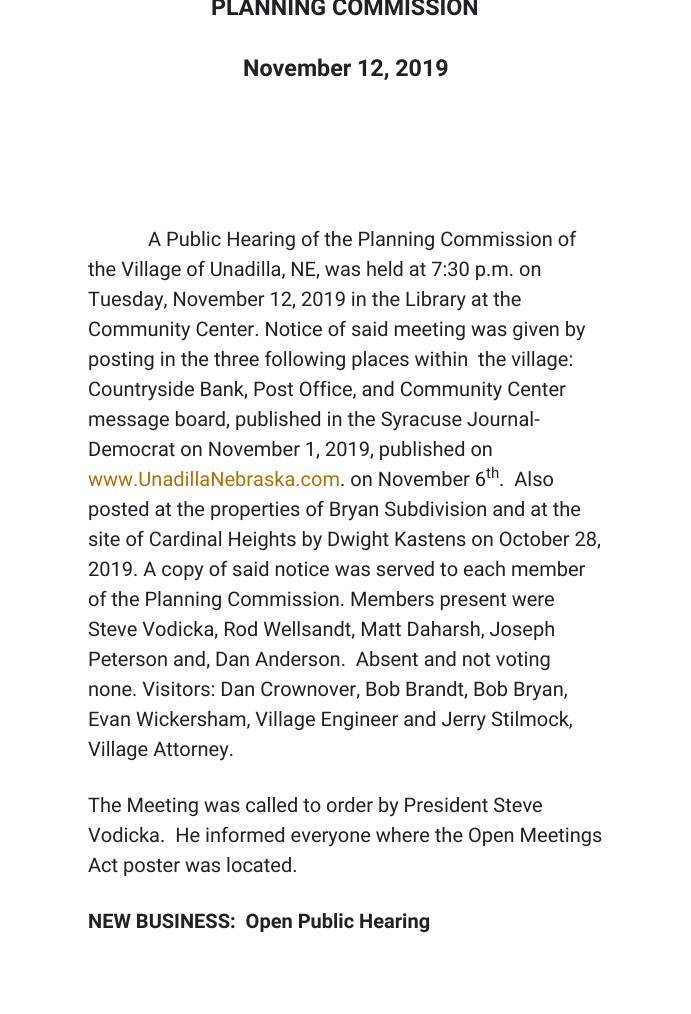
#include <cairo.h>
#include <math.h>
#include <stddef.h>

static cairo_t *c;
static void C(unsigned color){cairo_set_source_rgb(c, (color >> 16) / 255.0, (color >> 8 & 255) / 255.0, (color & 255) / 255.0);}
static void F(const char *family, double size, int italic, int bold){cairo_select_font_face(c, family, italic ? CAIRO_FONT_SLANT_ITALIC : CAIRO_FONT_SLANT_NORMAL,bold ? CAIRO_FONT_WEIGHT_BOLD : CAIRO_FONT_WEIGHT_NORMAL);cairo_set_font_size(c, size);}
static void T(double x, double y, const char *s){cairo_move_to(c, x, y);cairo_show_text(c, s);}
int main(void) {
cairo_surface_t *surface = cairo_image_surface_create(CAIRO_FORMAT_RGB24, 691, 1014);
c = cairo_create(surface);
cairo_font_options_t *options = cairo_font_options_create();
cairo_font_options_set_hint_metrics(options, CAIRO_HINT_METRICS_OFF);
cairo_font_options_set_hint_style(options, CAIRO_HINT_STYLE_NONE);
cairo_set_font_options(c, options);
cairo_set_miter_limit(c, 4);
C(0xffffff);
cairo_paint(c);
F("Heebo",23.25,0,1);
C(0x1f2126);
T(211,15,"PLANNING COMMISSION");
T(243,76,"November 12, 2019");
F("Heebo",20,0,0);
T(148,246,"A Public Hearing of the Planning Commission of");
T(88,276,"the Village of Unadilla, NE, was held at 7:30 p.m. on");
T(88,306,"Tuesday, November 12, 2019 in the Library at the");
T(88,336,"Community Center. Notice of said meeting was given by");
T(88,366,"posting in the three following places within  the village:");
T(88,396,"Countryside Bank, Post Office, and Community Center");
T(88,426,"message board, published in the Syracuse Journal-");
T(88,456,"Democrat on November 1, 2019, published on");
C(0xb07100);
T(88,486,"www.UnadillaNebraska.com");
C(0x1f2126);
T(340,486,". on November 6");
F("Heebo",15,0,0);
T(486,478,"th");
F("Heebo",20,0,0);
T(499,486,".  Also");
T(88,516,"posted at the properties of Bryan Subdivision and at the");
T(88,546,"site of Cardinal Heights by Dwight Kastens on October 28,");
T(88,576,"2019. A copy of said notice was served to each member");
T(88,606,"of the Planning Commission. Members present were");
T(88,636,"Steve Vodicka, Rod Wellsandt, Matt Daharsh, Joseph");
T(88,666,"Peterson and, Dan Anderson.  Absent and not voting");
T(88,696,"none. Visitors: Dan Crownover, Bob Brandt, Bob Bryan,");
T(88,726,"Evan Wickersham, Village Engineer and Jerry Stilmock,");
T(88,756,"Village Attorney.");
T(88,812,"The Meeting was called to order by President Steve");
T(88,842,"Vodicka.  He informed everyone where the Open Meetings");
T(88,872,"Act poster was located.");
F("Heebo",20,0,1);
T(88,928,"NEW BUSINESS:  Open Public Hearing");
cairo_surface_write_to_png(surface, "o.png");
cairo_font_options_destroy(options);
cairo_destroy(c);
cairo_surface_destroy(surface);
return 0;
}
